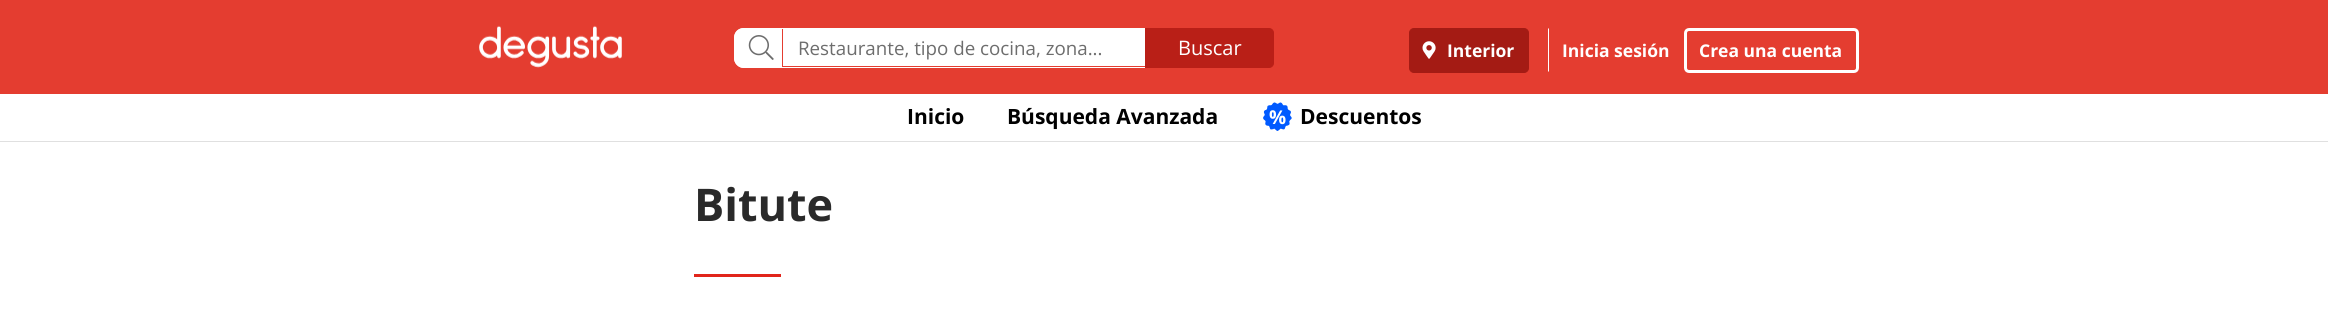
#include <cairo.h>
#include <math.h>
#include <stddef.h>

static cairo_t *c;
static void C(unsigned color){cairo_set_source_rgb(c, (color >> 16) / 255.0, (color >> 8 & 255) / 255.0, (color & 255) / 255.0);}
static void F(const char *family, double size, int italic, int bold){cairo_select_font_face(c, family, italic ? CAIRO_FONT_SLANT_ITALIC : CAIRO_FONT_SLANT_NORMAL,bold ? CAIRO_FONT_WEIGHT_BOLD : CAIRO_FONT_WEIGHT_NORMAL);cairo_set_font_size(c, size);}
static void T(double x, double y, const char *s){cairo_move_to(c, x, y);cairo_show_text(c, s);}
static void R(double x, double y, double w, double h){cairo_rectangle(c, x, y, w, h);cairo_fill(c);}
static void Q(double x, double y, double w, double h, double r){cairo_new_sub_path(c);cairo_arc(c, x + w - r, y + h - r, r, 0, M_PI / 2);cairo_arc(c, x + r, y + h - r, r, M_PI / 2, M_PI);cairo_arc(c, x + r, y + r, r, M_PI, 1.5 * M_PI);cairo_arc(c, x + w - r, y + r, r, 1.5 * M_PI, 2 * M_PI);cairo_close_path(c);}
static void I(const char *path, double x, double y, double w, double h){cairo_surface_t *image = cairo_image_surface_create_from_png(path);cairo_save(c);cairo_set_source_surface(c, image, x, y);cairo_rectangle(c, x, y, w, h);cairo_fill(c);cairo_restore(c);cairo_surface_destroy(image);}
int main(void) {
cairo_surface_t *surface = cairo_image_surface_create(CAIRO_FORMAT_RGB24, 2328, 335);
c = cairo_create(surface);
cairo_font_options_t *options = cairo_font_options_create();
cairo_font_options_set_hint_metrics(options, CAIRO_HINT_METRICS_OFF);
cairo_font_options_set_hint_style(options, CAIRO_HINT_STYLE_NONE);
cairo_set_font_options(c, options);
cairo_set_miter_limit(c, 4);
C(0xffffff);
cairo_paint(c);
C(0xe43d30);
R(0,0,2328,94);
I("1.png",479,25,143,43);
C(0xffffff);
cairo_new_path(c);
cairo_move_to(c,744,28);
cairo_line_to(c,781,28);
cairo_line_to(c,781,68);
cairo_line_to(c,744,68);
cairo_curve_to(c,738.5,68,734,63.5,734,58);
cairo_line_to(c,734,38);
cairo_curve_to(c,734,32.5,738.5,28,744,28);
cairo_close_path(c);
cairo_fill(c);
cairo_set_fill_rule(c,CAIRO_FILL_RULE_EVEN_ODD);
cairo_new_path(c);
cairo_move_to(c,744,28);
cairo_line_to(c,781,28);
cairo_line_to(c,781,68);
cairo_line_to(c,744,68);
cairo_curve_to(c,738,68,734,63,734,58);
cairo_line_to(c,734,38);
cairo_curve_to(c,734,32,738,28,744,28);
cairo_close_path(c);
cairo_move_to(c,744,29);
cairo_line_to(c,781,29);
cairo_line_to(c,781,66);
cairo_line_to(c,744,66);
cairo_curve_to(c,739,66,735,62,735,58);
cairo_line_to(c,735,38);
cairo_curve_to(c,735,33,739,29,744,29);
cairo_close_path(c);
cairo_fill(c);
I("2.png",748,35,26,25);
R(783,29,362,37);
cairo_rectangle(c,781.5,28.5,364,39);
cairo_set_line_width(c,1);
cairo_stroke(c);
F("Open Sans",18.75,0,0);
C(0x6d6d6d);
T(798,55,"Restaurante, tipo de cocina, zona...");
C(0xb91f17);
cairo_new_path(c);
cairo_move_to(c,1145.5,28.5);
cairo_line_to(c,1269,28.5);
cairo_curve_to(c,1271.5,28.5,1273.5,30.5,1273.5,33);
cairo_line_to(c,1273.5,63);
cairo_curve_to(c,1273.5,65.5,1271.5,67.5,1269,67.5);
cairo_line_to(c,1145.5,67.5);
cairo_close_path(c);
cairo_fill_preserve(c);
cairo_stroke(c);
F("Open Sans",20,0,0);
C(0xffffff);
T(1178,55,"Buscar");
C(0xa41b14);
Q(1409.5,28.5,119,44,4.5);
cairo_fill_preserve(c);
cairo_stroke(c);
I("3.png",1422,41,14,18);
F("Open Sans",17.5,0,1);
C(0xffffff);
T(1447,57,"Interior");
cairo_set_fill_rule(c,CAIRO_FILL_RULE_WINDING);
cairo_new_path(c);
cairo_move_to(c,1548,72);
cairo_line_to(c,1548,28);
cairo_line_to(c,1549,29);
cairo_line_to(c,1549,71);
cairo_close_path(c);
cairo_fill(c);
T(1562,57,"Inicia sesión");
Q(1685.5,29.5,172,42,3.5);
cairo_set_line_width(c,3);
cairo_stroke(c);
T(1699,57,"Crea una cuenta");
C(0xe0e0e0);
R(0,141,2328,1);
F("Open Sans",21,0,1);
C(0x000000);
T(907,124,"Inicio");
T(1007,124,"Búsqueda Avanzada");
I("4.png",1263,102,29,29);
F("Open Sans",19,0,1);
C(0xffffff);
T(1269,124,"%");
F("Open Sans",21,0,1);
C(0x000000);
T(1300,124,"Descuentos");
F("Open Sans",45,0,1);
C(0x2a2a2a);
T(694,221,"Bitute");
C(0xe1251b);
R(694,274,87,3);
cairo_surface_write_to_png(surface, "o.png");
cairo_font_options_destroy(options);
cairo_destroy(c);
cairo_surface_destroy(surface);
return 0;
}
